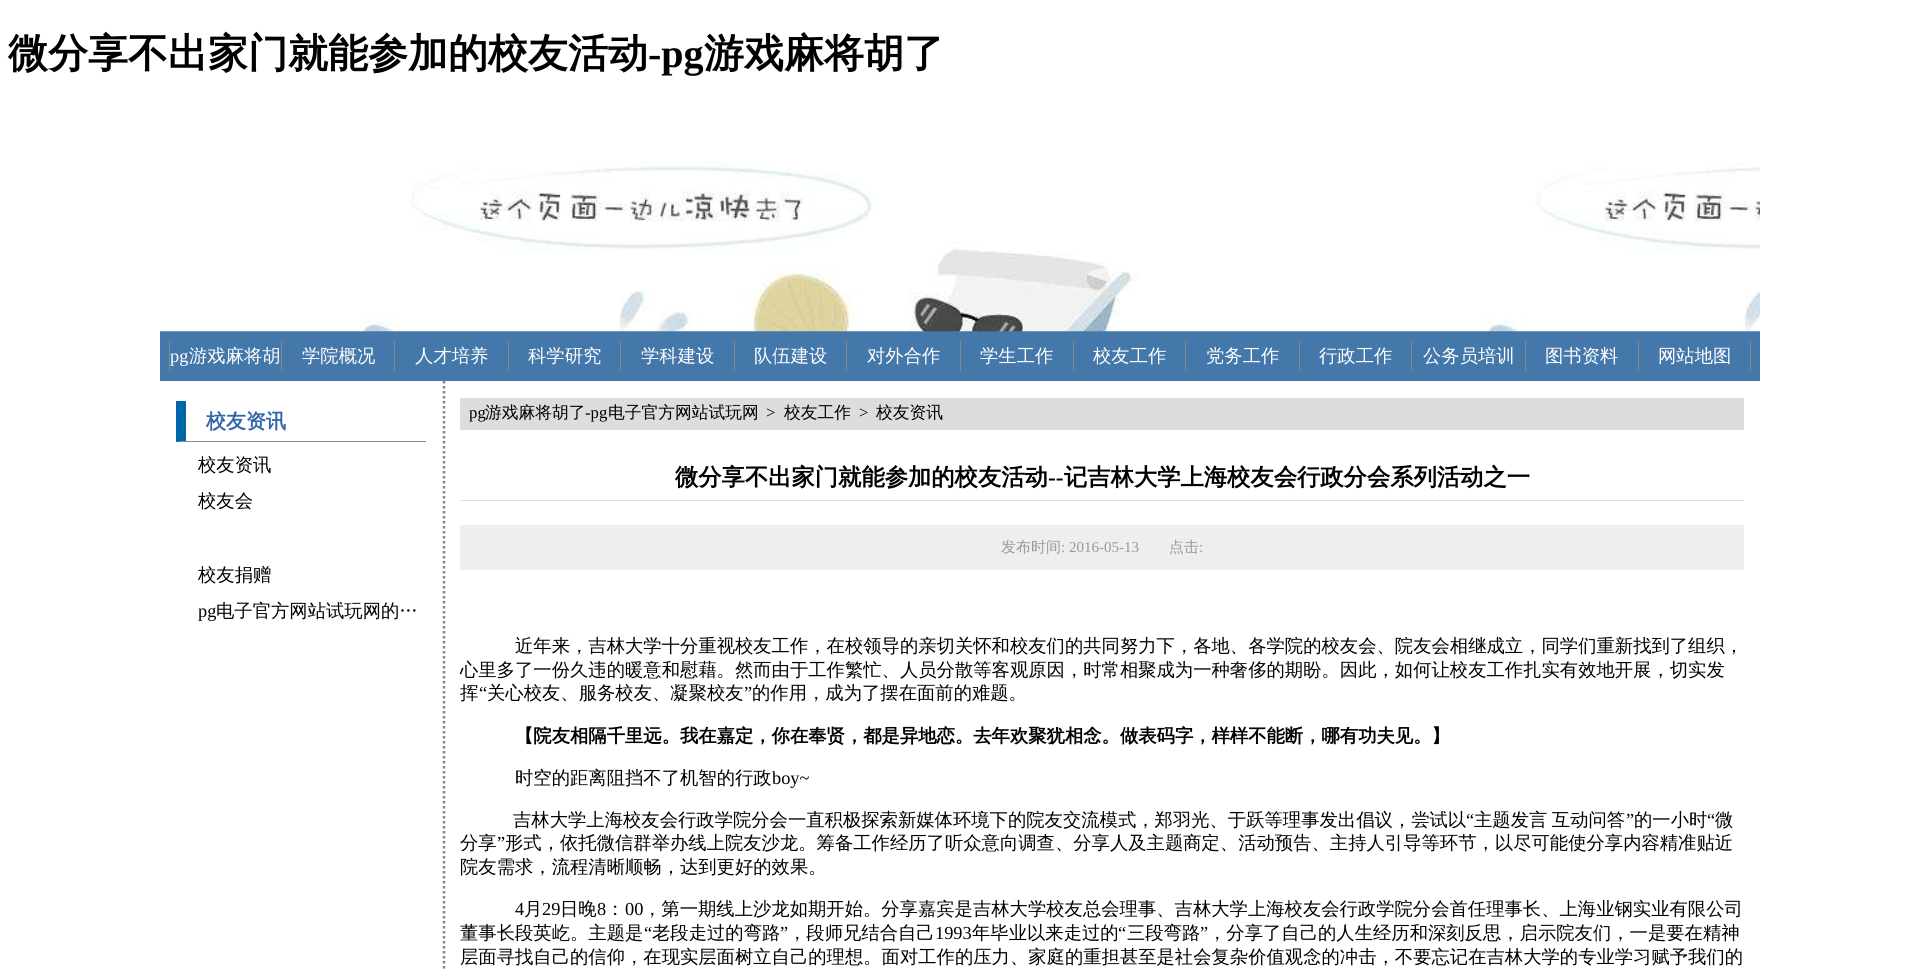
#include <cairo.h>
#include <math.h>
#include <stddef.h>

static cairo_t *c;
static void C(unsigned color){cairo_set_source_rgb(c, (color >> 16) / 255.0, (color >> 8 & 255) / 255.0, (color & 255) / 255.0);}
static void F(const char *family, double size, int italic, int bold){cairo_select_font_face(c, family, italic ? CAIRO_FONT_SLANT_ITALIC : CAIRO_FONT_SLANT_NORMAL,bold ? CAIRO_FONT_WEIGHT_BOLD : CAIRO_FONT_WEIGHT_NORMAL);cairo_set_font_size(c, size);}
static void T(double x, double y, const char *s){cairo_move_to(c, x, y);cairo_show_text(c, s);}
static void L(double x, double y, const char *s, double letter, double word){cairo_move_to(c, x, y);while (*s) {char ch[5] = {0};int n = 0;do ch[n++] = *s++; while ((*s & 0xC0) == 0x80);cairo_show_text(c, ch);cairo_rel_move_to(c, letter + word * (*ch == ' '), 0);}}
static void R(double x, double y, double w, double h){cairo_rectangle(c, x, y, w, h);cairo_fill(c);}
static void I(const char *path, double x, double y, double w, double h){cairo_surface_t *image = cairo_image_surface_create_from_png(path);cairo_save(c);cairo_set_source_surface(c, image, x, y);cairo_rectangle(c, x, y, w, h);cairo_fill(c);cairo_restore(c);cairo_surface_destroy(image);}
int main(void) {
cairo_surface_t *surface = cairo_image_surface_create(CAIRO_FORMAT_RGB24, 1919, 969);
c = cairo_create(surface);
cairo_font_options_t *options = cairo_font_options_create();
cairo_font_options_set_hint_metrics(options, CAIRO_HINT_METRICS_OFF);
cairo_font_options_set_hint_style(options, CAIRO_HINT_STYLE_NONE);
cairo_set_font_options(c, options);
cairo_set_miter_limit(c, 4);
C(0xffffff);
cairo_paint(c);
F("WenQuanYi Zen Hei",40,0,1);
C(0x000000);
T(8,67,"微分享不出家门就能参加的校友活动");
F("Liberation Serif",40,0,1);
T(648,67,"-pg");
F("WenQuanYi Zen Hei",40,0,1);
T(704,67,"游戏麻将胡了");
C(0x4477aa);
R(160,331,1600,50);
I("1.png",160,161,1600,171);
C(0x888888);
R(281,341,1,30);
R(169,341,1,30);
F("Liberation Serif",18.33,0,0);
C(0xffffff);
T(170,362,"pg");
F("WenQuanYi Zen Hei Medium",18.33,0,0);
T(189,362,"游戏麻将胡");
C(0x888888);
R(394,341,1,30);
C(0xffffff);
T(302,362,"学院概况");
C(0x888888);
R(508,341,1,30);
C(0xffffff);
T(415,362,"人才培养");
C(0x888888);
R(620,341,1,30);
C(0xffffff);
T(528,362,"科学研究");
C(0x888888);
R(734,341,1,30);
C(0xffffff);
T(641,362,"学科建设");
C(0x888888);
R(846,341,1,30);
C(0xffffff);
T(754,362,"队伍建设");
C(0x888888);
R(960,341,1,30);
C(0xffffff);
T(867,362,"对外合作");
C(0x888888);
R(1073,341,1,30);
C(0xffffff);
T(980,362,"学生工作");
C(0x888888);
R(1185,341,1,30);
C(0xffffff);
T(1093,362,"校友工作");
C(0x888888);
R(1299,341,1,30);
C(0xffffff);
T(1206,362,"党务工作");
C(0x888888);
R(1411,341,1,30);
C(0xffffff);
T(1319,362,"行政工作");
C(0x888888);
R(1525,341,1,30);
C(0xffffff);
T(1423,362,"公务员培训");
C(0x888888);
R(1638,341,1,30);
C(0xffffff);
T(1545,362,"图书资料");
C(0x888888);
R(1750,341,1,30);
C(0xffffff);
T(1658,362,"网站地图");
C(0x888888);
cairo_new_path(c);
cairo_move_to(c,426,442);
cairo_line_to(c,176,442);
cairo_line_to(c,186,441);
cairo_line_to(c,426,441);
cairo_close_path(c);
cairo_fill(c);
C(0x0066aa);
cairo_new_path(c);
cairo_move_to(c,176,442);
cairo_line_to(c,176,401);
cairo_line_to(c,186,401);
cairo_line_to(c,186,441);
cairo_close_path(c);
cairo_fill(c);
F("WenQuanYi Zen Hei",20,0,1);
C(0x3366aa);
T(206,428,"校友资讯");
F("WenQuanYi Zen Hei Medium",18.33,0,0);
C(0x000000);
T(198,471,"校友资讯");
T(198,507,"校友会");
T(198,581,"校友捐赠");
F("Liberation Serif",18.33,0,0);
T(198,617,"pg");
F("WenQuanYi Zen Hei Medium",18.33,0,0);
T(216,617,"电子官方网站试玩网的…");
cairo_new_path(c);
cairo_move_to(c,444,381);
cairo_line_to(c,444,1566);
C(0x888888);
cairo_set_line_width(c,2.5);
cairo_set_dash(c,(double[]){2.5,2.5},2,0);
cairo_stroke(c);
C(0xdddddd);
R(460,398,1284,32);
F("Liberation Serif",16.75,0,0);
C(0x000000);
T(469,418,"pg");
F("WenQuanYi Zen Hei Medium",16.75,0,0);
T(485,418,"游戏麻将胡了");
F("Liberation Serif",16.75,0,0);
T(585,418,"-pg");
F("WenQuanYi Zen Hei Medium",16.75,0,0);
T(608,418,"电子官方网站试玩网");
F("Liberation Serif",16.75,0,0);
T(766,418,">");
F("WenQuanYi Zen Hei Medium",16.75,0,0);
T(784,418,"校友工作");
F("Liberation Serif",16.75,0,0);
T(859,418,">");
F("WenQuanYi Zen Hei Medium",16.75,0,0);
T(876,418,"校友资讯");
C(0xdddddd);
R(460,500,1284,1);
F("WenQuanYi Zen Hei",23.3,0,1);
C(0x000000);
T(675,485,"微分享不出家门就能参加的校友活动");
F("Liberation Serif",23.3,0,1);
T(1048,485,"--");
F("WenQuanYi Zen Hei",23.3,0,1);
T(1064,485,"记吉林大学上海校友会行政分会系列活动之一");
C(0xeeeeee);
R(460,525,1284,45);
F("WenQuanYi Zen Hei Medium",15,0,0);
C(0x999999);
T(1001,552,"发布时间");
F("Liberation Serif",15,0,0);
T(1061,552,": 2016-05-13");
F("WenQuanYi Zen Hei Medium",15,0,0);
T(1169,552,"点击");
F("Liberation Serif",15,0,0);
T(1199,552,":");
F("WenQuanYi Zen Hei Medium",18.33,0,0);
C(0x000000);
T(515,652,"近年来，吉林大学十分重视校友工作，在校领导的亲切关怀和校友们的共同努力下，各地、各学院的校友会、院友会相继成立，同学们重新找到了组织，");
T(460,676,"心里多了一份久违的暖意和慰藉。然而由于工作繁忙、人员分散等客观原因，时常相聚成为一种奢侈的期盼。因此，如何让校友工作扎实有效地开展，切实发");
T(460,699,"挥");
F("Liberation Serif",18.33,0,0);
T(479,699,"“");
F("WenQuanYi Zen Hei Medium",18.33,0,0);
T(487,699,"关心校友、服务校友、凝聚校友");
F("Liberation Serif",18.33,0,0);
T(744,699,"”");
F("WenQuanYi Zen Hei Medium",18.33,0,0);
T(752,699,"的作用，成为了摆在面前的难题。");
F("WenQuanYi Zen Hei",18.33,0,1);
T(515,742,"【院友相隔千里远。我在嘉定，你在奉贤，都是异地恋。去年欢聚犹相念。做表码字，样样不能断，哪有功夫见。】");
F("WenQuanYi Zen Hei Medium",18.33,0,0);
T(515,784,"时空的距离阻挡不了机智的行政");
F("Liberation Serif",18.33,0,0);
T(772,784,"boy~");
F("WenQuanYi Zen Hei Medium",18.33,0,0);
T(513,826,"吉林大学上海校友会行政学院分会一直积极探索新媒体环境下的院友交流模式，郑羽光、于跃等理事发出倡议，尝试以");
F("Liberation Serif",18.33,0,0);
T(1466,826,"“");
F("WenQuanYi Zen Hei Medium",18.33,0,0);
L(1474,826,"主题发言 互动问答",0,-1);
F("Liberation Serif",18.33,0,0);
T(1626,826,"”");
F("WenQuanYi Zen Hei Medium",18.33,0,0);
T(1634,826,"的一小时");
F("Liberation Serif",18.33,0,0);
T(1707,826,"“");
F("WenQuanYi Zen Hei Medium",18.33,0,0);
T(1715,826,"微");
T(460,849,"分享");
F("Liberation Serif",18.33,0,0);
T(497,849,"”");
F("WenQuanYi Zen Hei Medium",18.33,0,0);
T(505,849,"形式，依托微信群举办线上院友沙龙。筹备工作经历了听众意向调查、分享人及主题商定、活动预告、主持人引导等环节，以尽可能使分享内容精准贴近");
T(460,873,"院友需求，流程清晰顺畅，达到更好的效果。");
F("Liberation Serif",18.33,0,0);
T(515,915,"4");
F("WenQuanYi Zen Hei Medium",18.33,0,0);
T(524,915,"月");
F("Liberation Serif",18.33,0,0);
T(542,915,"29");
F("WenQuanYi Zen Hei Medium",18.33,0,0);
T(560,915,"日晚");
F("Liberation Serif",18.33,0,0);
T(597,915,"8");
F("WenQuanYi Zen Hei Medium",18.33,0,0);
T(606,915,"：");
F("Liberation Serif",18.33,0,0);
T(625,915,"00");
F("WenQuanYi Zen Hei Medium",18.33,0,0);
T(643,915,"，第一期线上沙龙如期开始。分享嘉宾是吉林大学校友总会理事、吉林大学上海校友会行政学院分会首任理事长、上海业钢实业有限公司");
T(460,939,"董事长段英屹。主题是");
F("Liberation Serif",18.33,0,0);
T(644,939,"“");
F("WenQuanYi Zen Hei Medium",18.33,0,0);
T(652,939,"老段走过的弯路");
F("Liberation Serif",18.33,0,0);
T(780,939,"”");
F("WenQuanYi Zen Hei Medium",18.33,0,0);
T(788,939,"，段师兄结合自己");
F("Liberation Serif",18.33,0,0);
T(935,939,"1993");
F("WenQuanYi Zen Hei Medium",18.33,0,0);
T(972,939,"年毕业以来走过的");
F("Liberation Serif",18.33,0,0);
T(1118,939,"“");
F("WenQuanYi Zen Hei Medium",18.33,0,0);
T(1127,939,"三段弯路");
F("Liberation Serif",18.33,0,0);
T(1200,939,"”");
F("WenQuanYi Zen Hei Medium",18.33,0,0);
T(1208,939,"，分享了自己的人生经历和深刻反思，启示院友们，一是要在精神");
T(460,963,"层面寻找自己的信仰，在现实层面树立自己的理想。面对工作的压力、家庭的重担甚至是社会复杂价值观念的冲击，不要忘记在吉林大学的专业学习赋予我们的");
cairo_surface_write_to_png(surface, "o.png");
cairo_font_options_destroy(options);
cairo_destroy(c);
cairo_surface_destroy(surface);
return 0;
}
